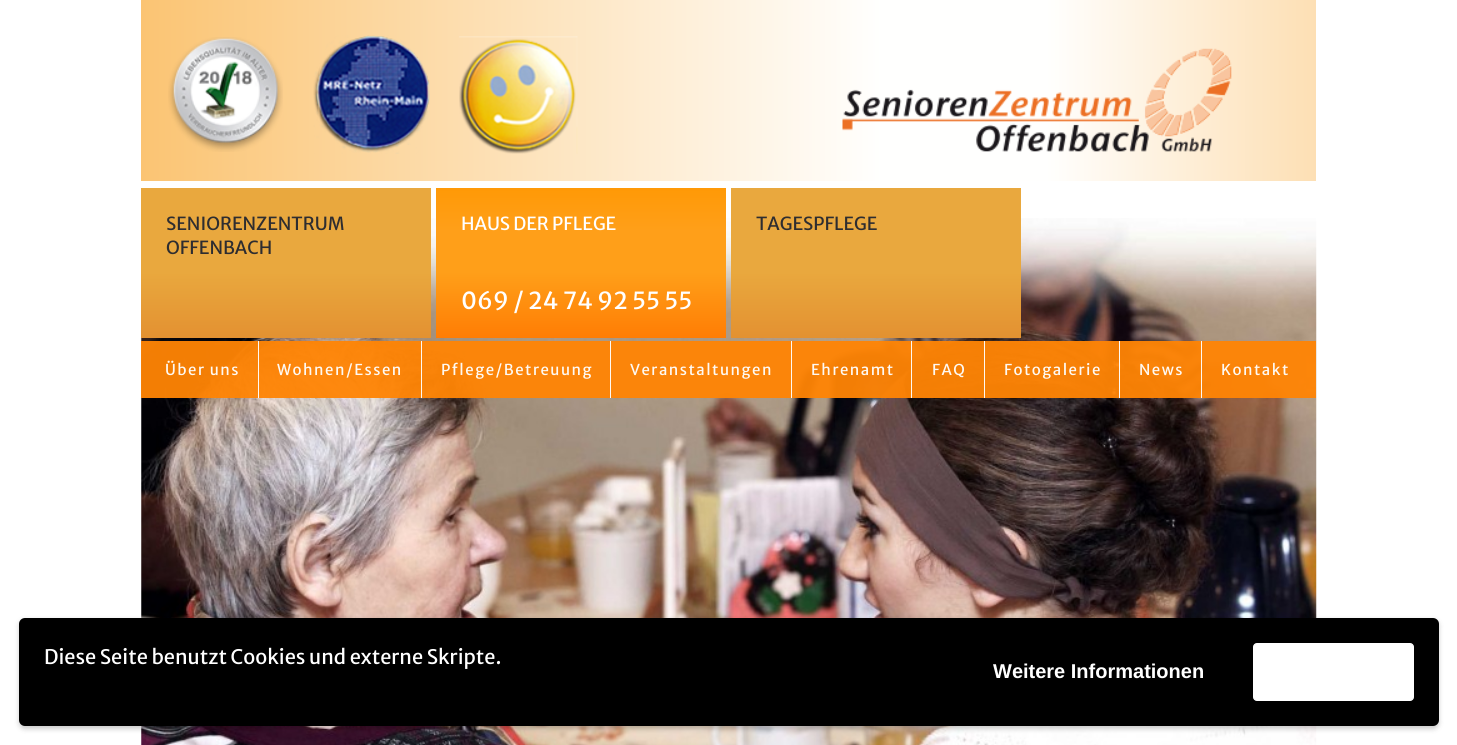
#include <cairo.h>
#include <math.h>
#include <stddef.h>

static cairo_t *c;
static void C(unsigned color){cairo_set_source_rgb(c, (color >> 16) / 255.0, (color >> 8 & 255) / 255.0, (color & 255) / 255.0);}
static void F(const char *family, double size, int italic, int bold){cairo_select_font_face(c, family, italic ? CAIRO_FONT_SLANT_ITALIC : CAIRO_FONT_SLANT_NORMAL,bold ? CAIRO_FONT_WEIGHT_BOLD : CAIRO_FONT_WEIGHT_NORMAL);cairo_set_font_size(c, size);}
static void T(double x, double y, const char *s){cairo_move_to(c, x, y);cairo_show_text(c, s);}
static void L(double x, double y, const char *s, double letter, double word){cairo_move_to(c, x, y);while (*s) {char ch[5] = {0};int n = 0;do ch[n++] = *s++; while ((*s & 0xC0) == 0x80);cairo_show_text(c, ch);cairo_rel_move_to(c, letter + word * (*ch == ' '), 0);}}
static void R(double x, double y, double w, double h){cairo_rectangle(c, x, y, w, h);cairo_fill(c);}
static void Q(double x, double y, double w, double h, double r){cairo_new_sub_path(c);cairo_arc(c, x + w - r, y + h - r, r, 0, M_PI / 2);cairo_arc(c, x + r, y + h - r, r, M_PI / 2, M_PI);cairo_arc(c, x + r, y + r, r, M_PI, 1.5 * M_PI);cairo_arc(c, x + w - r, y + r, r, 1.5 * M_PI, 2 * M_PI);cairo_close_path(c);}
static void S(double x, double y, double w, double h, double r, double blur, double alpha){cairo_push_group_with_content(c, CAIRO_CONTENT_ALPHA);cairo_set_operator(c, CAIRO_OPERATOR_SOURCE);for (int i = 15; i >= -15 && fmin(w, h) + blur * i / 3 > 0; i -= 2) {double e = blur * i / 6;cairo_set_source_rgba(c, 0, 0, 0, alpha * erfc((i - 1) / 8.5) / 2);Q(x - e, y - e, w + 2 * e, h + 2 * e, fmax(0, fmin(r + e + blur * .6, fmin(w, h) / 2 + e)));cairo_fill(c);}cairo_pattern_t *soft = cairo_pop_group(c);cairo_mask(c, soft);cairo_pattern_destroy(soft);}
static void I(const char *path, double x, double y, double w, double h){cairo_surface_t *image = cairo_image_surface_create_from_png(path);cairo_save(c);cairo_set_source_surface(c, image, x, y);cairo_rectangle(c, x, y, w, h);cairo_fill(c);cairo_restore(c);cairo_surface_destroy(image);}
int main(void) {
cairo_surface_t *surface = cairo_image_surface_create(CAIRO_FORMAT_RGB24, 1457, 745);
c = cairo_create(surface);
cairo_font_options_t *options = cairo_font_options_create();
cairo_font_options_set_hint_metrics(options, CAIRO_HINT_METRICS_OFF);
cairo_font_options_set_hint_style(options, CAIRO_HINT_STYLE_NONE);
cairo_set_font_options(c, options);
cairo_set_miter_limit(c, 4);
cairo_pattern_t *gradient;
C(0xffffff);
cairo_paint(c);
gradient = cairo_pattern_create_linear(141,91,1316,91);
cairo_pattern_add_color_stop_rgba(gradient,0,0.984,0.769,0.451,1);
cairo_pattern_add_color_stop_rgba(gradient,.63,1,1,0.996,1);
cairo_pattern_add_color_stop_rgba(gradient,.77,1,1,0.996,1);
cairo_pattern_add_color_stop_rgba(gradient,1,0.992,0.875,0.706,1);
cairo_set_source(c,gradient);
cairo_pattern_destroy(gradient);
R(141,0,1175,181);
I("1.png",168,37,115,115);
I("2.png",313,35,117,119);
I("3.png",459,36,119,118);
I("4.png",842,48,390,104);
I("5.png",141,218,1176,527);
gradient = cairo_pattern_create_linear(286,188,286,338);
cairo_pattern_add_color_stop_rgba(gradient,0,0.914,0.659,0.243,1);
cairo_pattern_add_color_stop_rgba(gradient,.56,0.914,0.659,0.243,1);
cairo_pattern_add_color_stop_rgba(gradient,1,0.89,0.569,0.192,1);
cairo_set_source(c,gradient);
cairo_pattern_destroy(gradient);
R(141,188,290,150);
F("Merriweather Sans",18,0,0);
C(0x2e2d30);
T(166,230,"SENIORENZENTRUM");
T(166,254,"OFFENBACH");
gradient = cairo_pattern_create_linear(581,188,581,338);
cairo_pattern_add_color_stop_rgba(gradient,0,1,0.6,0.024,1);
cairo_pattern_add_color_stop_rgba(gradient,.28,1,0.624,0.098,1);
cairo_pattern_add_color_stop_rgba(gradient,.56,1,0.624,0.098,1);
cairo_pattern_add_color_stop_rgba(gradient,1,1,0.49,0.016,1);
cairo_set_source(c,gradient);
cairo_pattern_destroy(gradient);
R(436,188,290,150);
C(0xffffff);
T(461,230,"HAUS DER PFLEGE");
F("Merriweather Sans",23.5,0,0);
T(461,309,"069 / 24 74 92 55 55");
gradient = cairo_pattern_create_linear(876,188,876,338);
cairo_pattern_add_color_stop_rgba(gradient,0,0.914,0.659,0.243,1);
cairo_pattern_add_color_stop_rgba(gradient,.56,0.914,0.659,0.243,1);
cairo_pattern_add_color_stop_rgba(gradient,1,0.89,0.569,0.192,1);
cairo_set_source(c,gradient);
cairo_pattern_destroy(gradient);
R(731,188,290,150);
F("Merriweather Sans",18,0,0);
C(0x2e2d30);
T(756,230,"TAGESPFLEGE");
cairo_set_source_rgba(c,1,0.522,0.02,0.95);
R(141,341,1175,57);
F("Merriweather Sans",15,0,0);
C(0xfef9f3);
L(165,375,"Über uns",1.5,0);
cairo_set_source_rgba(c,1,1,1,0.95);
R(258,341,1,57);
C(0xfef9f3);
L(277,375,"Wohnen/Essen",1.5,0);
cairo_set_source_rgba(c,1,1,1,0.95);
R(421,341,1,57);
C(0xfef9f3);
L(441,375,"Pflege/Betreuung",1.5,0);
C(0xfff9f3);
R(610,341,1,57);
C(0xfef9f3);
L(630,375,"Veranstaltungen",1.5,0);
C(0xfff9f3);
R(791,341,1,57);
C(0xfef9f3);
L(811,375,"Ehrenamt",1.5,0);
cairo_set_source_rgba(c,1,1,1,0.95);
R(911,341,1,57);
C(0xfef9f3);
L(932,375,"FAQ",1.5,0);
cairo_set_source_rgba(c,1,1,1,0.95);
R(984,341,1,57);
C(0xfef9f3);
L(1004,375,"Fotogalerie",1.5,0);
cairo_set_source_rgba(c,1,1,1,0.95);
R(1119,341,1,57);
C(0xfef9f3);
L(1139,375,"News",1.5,0);
cairo_set_source_rgba(c,1,1,1,0.95);
R(1201,341,1,57);
C(0xfef9f3);
L(1221,375,"Kontakt",1.5,0);
C(0x000000);
S(19,620,1420,109,6,2.5,.2);
C(0x000000);
Q(19,618,1420,108,6);
cairo_fill(c);
F("Merriweather Sans",20,0,0);
C(0xffffff);
T(44,664,"Diese Seite benutzt Cookies und externe Skripte.");
Q(1253.5,643.5,160,57,3.5);
cairo_fill_preserve(c);
cairo_set_line_width(c,1);
cairo_stroke(c);
F("Liberation Sans",20,0,1);
T(993,678,"Weitere Informationen");
cairo_surface_write_to_png(surface, "o.png");
cairo_font_options_destroy(options);
cairo_destroy(c);
cairo_surface_destroy(surface);
return 0;
}
